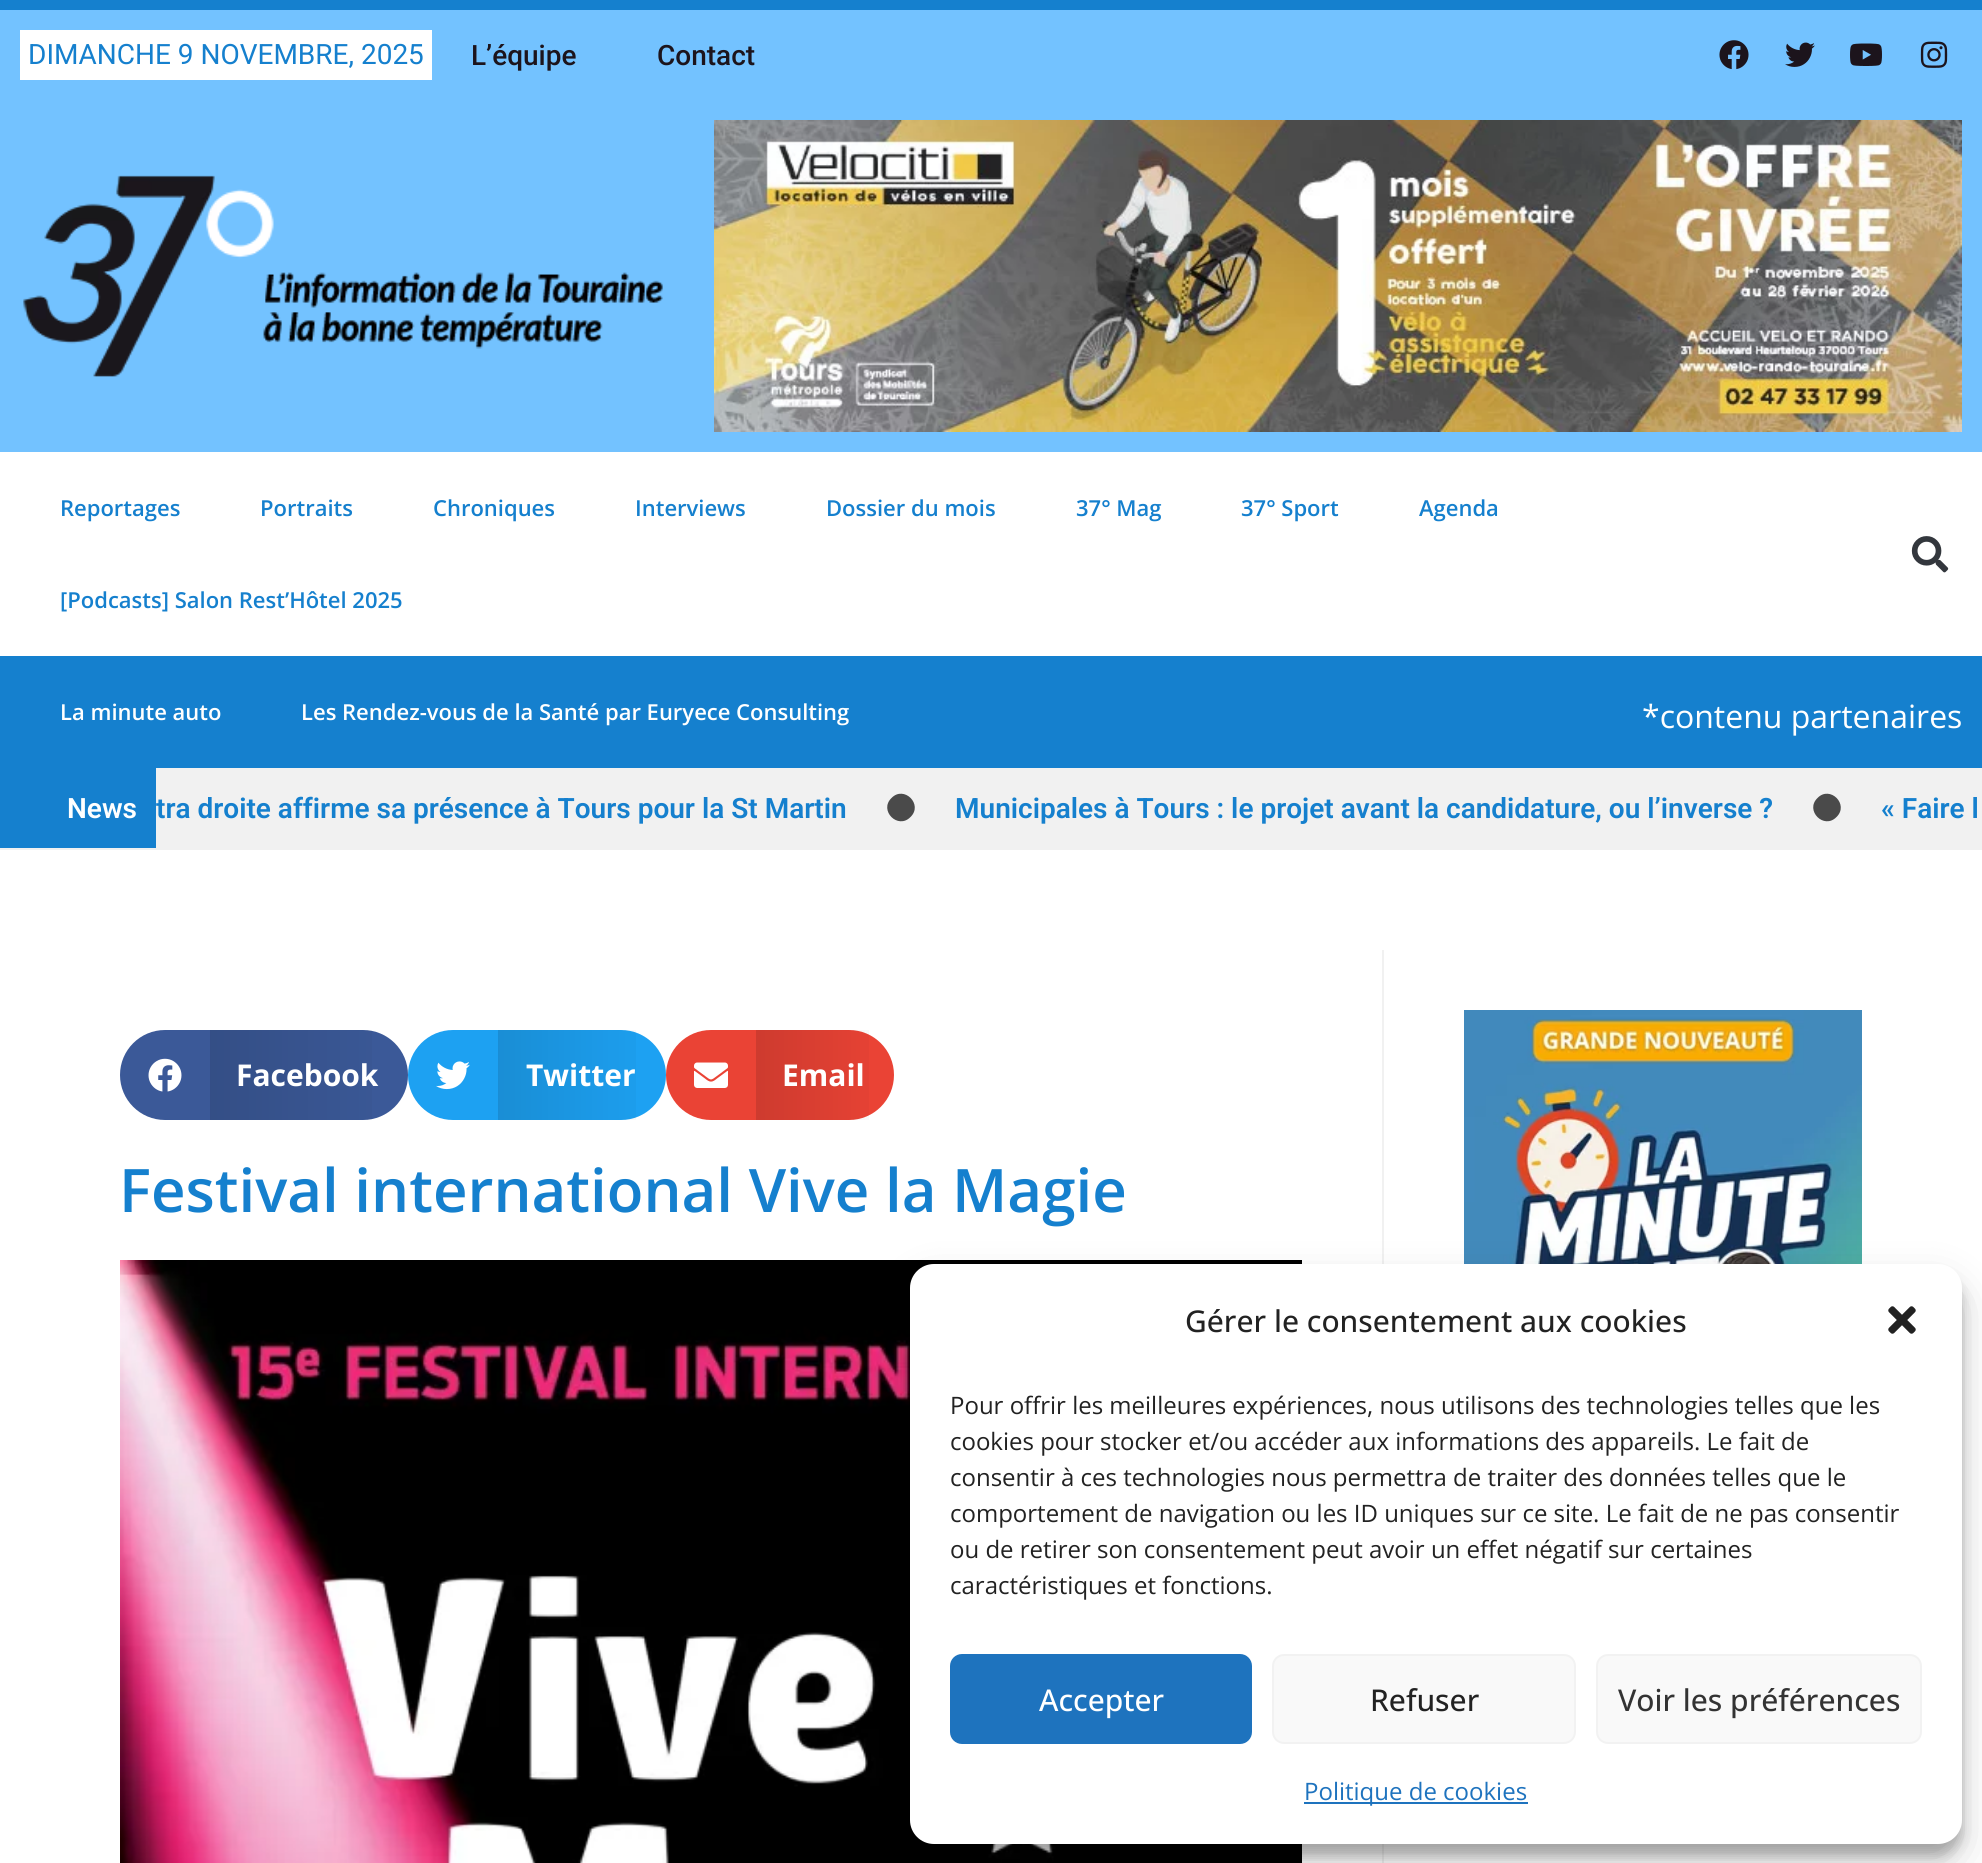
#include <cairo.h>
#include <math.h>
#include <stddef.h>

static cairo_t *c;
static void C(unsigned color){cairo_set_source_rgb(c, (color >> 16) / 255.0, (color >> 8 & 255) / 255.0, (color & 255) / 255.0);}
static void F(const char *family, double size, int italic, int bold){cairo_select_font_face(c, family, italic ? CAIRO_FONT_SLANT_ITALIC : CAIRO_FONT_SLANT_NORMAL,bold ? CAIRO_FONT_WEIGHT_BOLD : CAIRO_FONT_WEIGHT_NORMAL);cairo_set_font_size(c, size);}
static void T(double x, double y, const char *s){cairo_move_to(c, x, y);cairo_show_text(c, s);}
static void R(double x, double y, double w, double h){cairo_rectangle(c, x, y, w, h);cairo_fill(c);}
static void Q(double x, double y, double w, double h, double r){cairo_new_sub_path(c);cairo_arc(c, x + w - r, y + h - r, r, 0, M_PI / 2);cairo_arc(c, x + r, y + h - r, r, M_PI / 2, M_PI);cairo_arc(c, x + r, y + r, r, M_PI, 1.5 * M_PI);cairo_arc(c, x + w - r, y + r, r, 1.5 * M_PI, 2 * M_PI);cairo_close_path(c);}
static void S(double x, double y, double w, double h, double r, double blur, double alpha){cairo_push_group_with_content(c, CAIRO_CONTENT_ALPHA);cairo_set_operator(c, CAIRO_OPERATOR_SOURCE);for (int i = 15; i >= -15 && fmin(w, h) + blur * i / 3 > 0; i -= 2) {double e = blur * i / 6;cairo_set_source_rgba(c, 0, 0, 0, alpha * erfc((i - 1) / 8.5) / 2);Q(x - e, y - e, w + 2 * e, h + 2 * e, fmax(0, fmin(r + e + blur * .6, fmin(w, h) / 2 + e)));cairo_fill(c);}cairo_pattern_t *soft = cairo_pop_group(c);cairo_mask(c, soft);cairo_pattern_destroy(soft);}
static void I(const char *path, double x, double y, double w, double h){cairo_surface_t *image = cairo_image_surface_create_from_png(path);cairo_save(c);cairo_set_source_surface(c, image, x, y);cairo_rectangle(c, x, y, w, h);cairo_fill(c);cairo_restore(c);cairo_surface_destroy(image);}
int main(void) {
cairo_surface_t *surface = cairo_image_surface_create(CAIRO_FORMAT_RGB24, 1982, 1863);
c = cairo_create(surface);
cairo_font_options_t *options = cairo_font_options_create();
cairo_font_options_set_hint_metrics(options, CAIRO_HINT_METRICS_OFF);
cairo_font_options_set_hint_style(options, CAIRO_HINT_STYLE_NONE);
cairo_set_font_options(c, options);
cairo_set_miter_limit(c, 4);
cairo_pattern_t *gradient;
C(0xffffff);
cairo_paint(c);
C(0xf1f1f1);
R(0,848,1982,2);
C(0x73c2ff);
R(0,10,1982,442);
C(0x1580ce);
R(0,0,1982,10);
C(0xffffff);
R(20,30,412,50);
F("Roboto",28,0,0);
C(0x1580ce);
T(28,64,"DIMANCHE 9 NOVEMBRE, 2025");
F("Roboto Medium",28,0,0);
C(0x1c141c);
T(471,65,"L’équipe");
T(657,65,"Contact");
I("1.png",1719,40,30,30);
I("2.png",1785,42,30,25);
I("3.png",1850,43,32,23);
I("4.png",1920,41,28,27);
I("5.png",23,175,640,202);
I("6.png",714,120,1248,312);
F("Open Sans SemiBold",22,0,0);
C(0x1580ce);
T(60,516,"Reportages");
T(260,516,"Portraits");
T(433,516,"Chroniques");
T(635,516,"Interviews");
T(826,516,"Dossier du mois");
T(1076,516,"37° Mag");
T(1241,516,"37° Sport");
T(1419,516,"Agenda");
T(60,608,"[Podcasts] Salon Rest’Hôtel 2025");
I("7.png",1911,536,38,37);
R(0,656,1982,112);
C(0xffffff);
T(60,720,"La minute auto");
T(301,720,"Les Rendez-vous de la Santé par Euryece Consulting");
F("Open Sans",32,0,0);
T(1642,728,"*contenu partenaires");
C(0x1580ce);
R(0,768,156,80);
F("Roboto SemiBold",28,0,0);
C(0xffffff);
T(67,818,"News");
C(0xf1f1f1);
R(156,768,1826,80);
C(0x1580ce);
T(156,818,"tra droite affirme sa présence à Tours pour la St Martin");
C(0x4a4a4a);
cairo_new_path(c);
cairo_move_to(c,891.5,798);
cairo_curve_to(c,904,785,923.5,804.5,910.5,817);
cairo_curve_to(c,898,830,878.5,810.5,891.5,798);
cairo_close_path(c);
cairo_fill(c);
C(0x1580ce);
T(955,818,"Municipales à Tours : le projet avant la candidature, ou l’inverse ?");
C(0x4a4a4a);
cairo_new_path(c);
cairo_move_to(c,1817.5,798);
cairo_curve_to(c,1830,785,1849.5,804.5,1836.5,817);
cairo_curve_to(c,1824,830,1804.5,810.5,1817.5,798);
cairo_close_path(c);
cairo_fill(c);
C(0x1580ce);
T(1881,818,"« Faire l");
C(0xf1f1f1);
R(1382,950,2,913);
C(0x3b5998);
Q(120,1030,288,90,45);
cairo_fill(c);
I("8.png",148,1058,34,34);
gradient = cairo_pattern_create_linear(210,1075,408,1075);
cairo_pattern_add_color_stop_rgba(gradient,0,0,0,0,.12);
cairo_pattern_add_color_stop_rgba(gradient,1,0,0,0,0);
cairo_set_source(c,gradient);
cairo_pattern_destroy(gradient);
R(210,1030,162,90);
F("Open Sans",30,0,1);
C(0xffffff);
T(236,1086,"Facebook");
C(0x1da1f2);
Q(408,1030,258,90,45);
cairo_fill(c);
I("9.png",436,1061,34,29);
gradient = cairo_pattern_create_linear(498,1075,666,1075);
cairo_pattern_add_color_stop_rgba(gradient,0,0,0,0,.12);
cairo_pattern_add_color_stop_rgba(gradient,1,0,0,0,0);
cairo_set_source(c,gradient);
cairo_pattern_destroy(gradient);
R(498,1030,138,90);
C(0xffffff);
T(526,1086,"Twitter");
C(0xea4335);
Q(666,1030,228,90,45);
cairo_fill(c);
I("10.png",694,1062,34,26);
gradient = cairo_pattern_create_linear(756,1075,894,1075);
cairo_pattern_add_color_stop_rgba(gradient,0,0,0,0,.12);
cairo_pattern_add_color_stop_rgba(gradient,1,0,0,0,0);
cairo_set_source(c,gradient);
cairo_pattern_destroy(gradient);
R(756,1030,113,90);
C(0xffffff);
T(782,1086,"Email");
F("Open Sans SemiBold",60,0,0);
C(0x1580ce);
T(119,1212,"Festival international Vive la Magie");
I("11.png",120,1260,1182,603);
I("12.png",1464,1010,398,254);
C(0x000000);
S(910,1276,1052,580,24,6,.23);
S(910,1284,1052,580,24,20,.19);
C(0xffffff);
Q(910,1264,1052,580,24);
cairo_fill(c);
F("Open Sans Medium",30,0,0);
C(0x222222);
T(1185,1332,"Gérer le consentement aux cookies");
I("13.png",1888,1306,28,28);
F("Open Sans",24,0,0);
T(950,1414,"Pour offrir les meilleures expériences, nous utilisons des technologies telles que les");
T(950,1450,"cookies pour stocker et/ou accéder aux informations des appareils. Le fait de");
T(950,1486,"consentir à ces technologies nous permettra de traiter des données telles que le");
T(950,1522,"comportement de navigation ou les ID uniques sur ce site. Le fait de ne pas consentir");
T(950,1558,"ou de retirer son consentement peut avoir un effet négatif sur certaines");
T(950,1594,"caractéristiques et fonctions.");
C(0x1e73be);
Q(951,1655,300,88,11);
cairo_fill_preserve(c);
cairo_stroke(c);
F("Open Sans Medium",30,0,0);
C(0xffffff);
T(1039,1711,"Accepter");
C(0xf9f9f9);
Q(1273,1655,302,88,11);
cairo_fill_preserve(c);
C(0xf2f2f2);
cairo_stroke(c);
C(0x222222);
T(1370,1711,"Refuser");
C(0xf9f9f9);
Q(1597,1655,324,88,11);
cairo_fill_preserve(c);
C(0xf2f2f2);
cairo_stroke(c);
C(0x333333);
T(1618,1711,"Voir les préférences");
C(0x1e73be);
R(1304,1802,224,2);
F("Open Sans",24,0,0);
T(1304,1800,"Politique de cookies");
cairo_surface_write_to_png(surface, "o.png");
cairo_font_options_destroy(options);
cairo_destroy(c);
cairo_surface_destroy(surface);
return 0;
}
